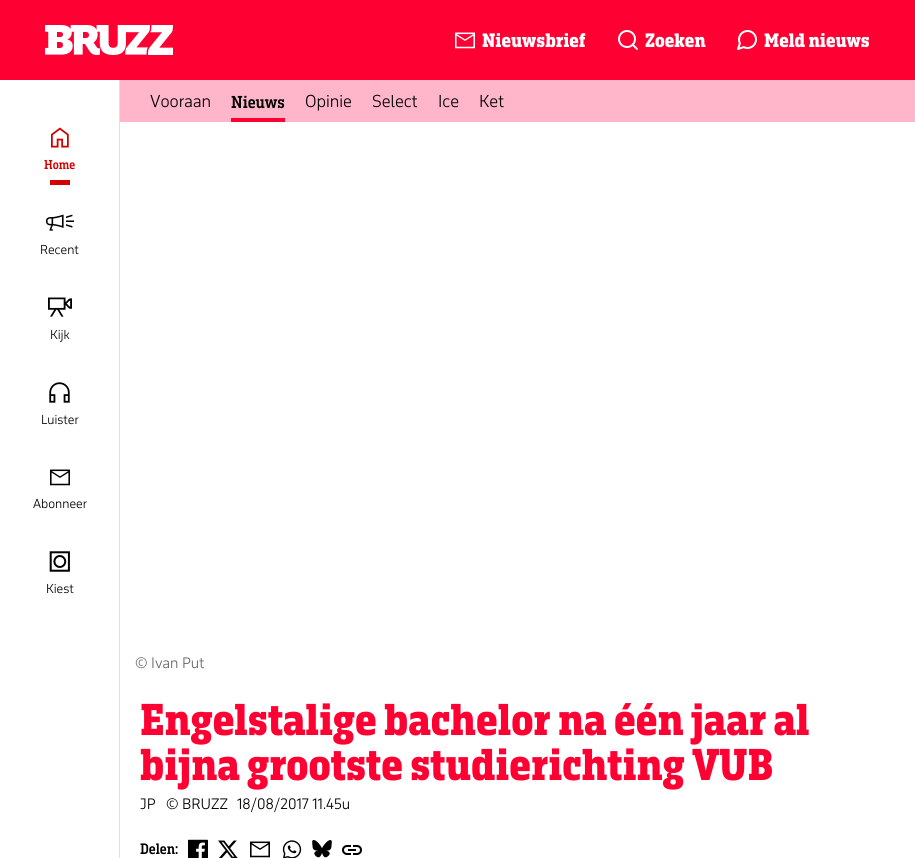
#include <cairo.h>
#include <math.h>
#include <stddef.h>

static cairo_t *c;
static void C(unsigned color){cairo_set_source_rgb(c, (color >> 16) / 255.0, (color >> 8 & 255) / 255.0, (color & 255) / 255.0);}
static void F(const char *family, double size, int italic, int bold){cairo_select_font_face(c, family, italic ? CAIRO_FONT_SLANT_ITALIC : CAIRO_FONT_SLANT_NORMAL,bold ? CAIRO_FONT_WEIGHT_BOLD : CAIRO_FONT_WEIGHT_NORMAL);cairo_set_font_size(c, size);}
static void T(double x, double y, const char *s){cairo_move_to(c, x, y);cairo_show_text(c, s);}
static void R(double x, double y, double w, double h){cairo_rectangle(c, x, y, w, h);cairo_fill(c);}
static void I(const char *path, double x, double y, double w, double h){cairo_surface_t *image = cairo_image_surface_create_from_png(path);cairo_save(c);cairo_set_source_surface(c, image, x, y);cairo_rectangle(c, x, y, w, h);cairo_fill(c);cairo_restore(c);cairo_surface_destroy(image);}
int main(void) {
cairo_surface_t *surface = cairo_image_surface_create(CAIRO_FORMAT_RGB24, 915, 858);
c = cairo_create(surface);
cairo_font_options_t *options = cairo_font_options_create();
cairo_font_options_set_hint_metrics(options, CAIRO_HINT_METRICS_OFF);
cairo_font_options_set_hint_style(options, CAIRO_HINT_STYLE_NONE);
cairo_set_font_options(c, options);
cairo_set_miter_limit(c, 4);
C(0xffffff);
cairo_paint(c);
C(0xff0033);
R(0,0,915,80);
I("1.png",45,25,128,30);
I("2.png",455,32,20,17);
F("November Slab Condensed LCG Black",18,0,0);
C(0xffffff);
T(482,47,"Nieuwsbrief");
I("3.png",618,30,20,20);
T(645,47,"Zoeken");
I("4.png",737,30,20,20);
T(764,47,"Meld nieuws");
C(0xffb6cb);
R(120,80,795,42);
F("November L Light",16,0,0);
C(0x000000);
T(150,107,"Vooraan");
F("November Slab Condensed LCG",16,0,1);
T(231,108,"Nieuws");
C(0xff0033);
R(231,118,54,4);
F("November L Light",16,0,0);
C(0x000000);
T(305,107,"Opinie");
T(372,107,"Select");
T(438,107,"Ice");
T(479,107,"Ket");
C(0xe0e0e0);
R(119,80,1,778);
I("5.png",51,127,18,21);
F("November Slab Condensed LCG",12,0,1);
C(0xd40000);
T(44,169,"Home");
R(50,180,20,5);
I("6.png",46,214,28,17);
F("November L Light",12,0,0);
C(0x000000);
T(40,254,"Recent");
I("7.png",48,297,24,20);
T(50,339,"Kijk");
I("8.png",49,382,21,21);
T(41,424,"Luister");
I("9.png",50,469,20,17);
T(33,508,"Abonneer");
I("10.png",49,551,21,21);
T(46,593,"Kiest");
F("November L Light",14,0,0);
C(0x666666);
T(135,668,"© Ivan Put");
F("November Slab Condensed LCG Black",41.2,0,0);
C(0xff0033);
T(140,735,"Engelstalige bachelor na één jaar al");
T(140,780,"bijna grootste studierichting VUB");
F("November L Light",14,0,0);
C(0x000000);
T(140,809,"JP");
T(166,809,"© BRUZZ");
T(237,809,"18/08/2017 11.45u");
F("November Slab Condensed LCG",14,0,1);
T(140,854,"Delen:");
I("11.png",188,839,20,19);
I("12.png",218,840,20,18);
I("9.png",250,841,20,17);
I("13.png",282,840,20,18);
I("14.png",312,840,20,18);
I("15.png",342,845,20,10);
cairo_surface_write_to_png(surface, "o.png");
cairo_font_options_destroy(options);
cairo_destroy(c);
cairo_surface_destroy(surface);
return 0;
}
